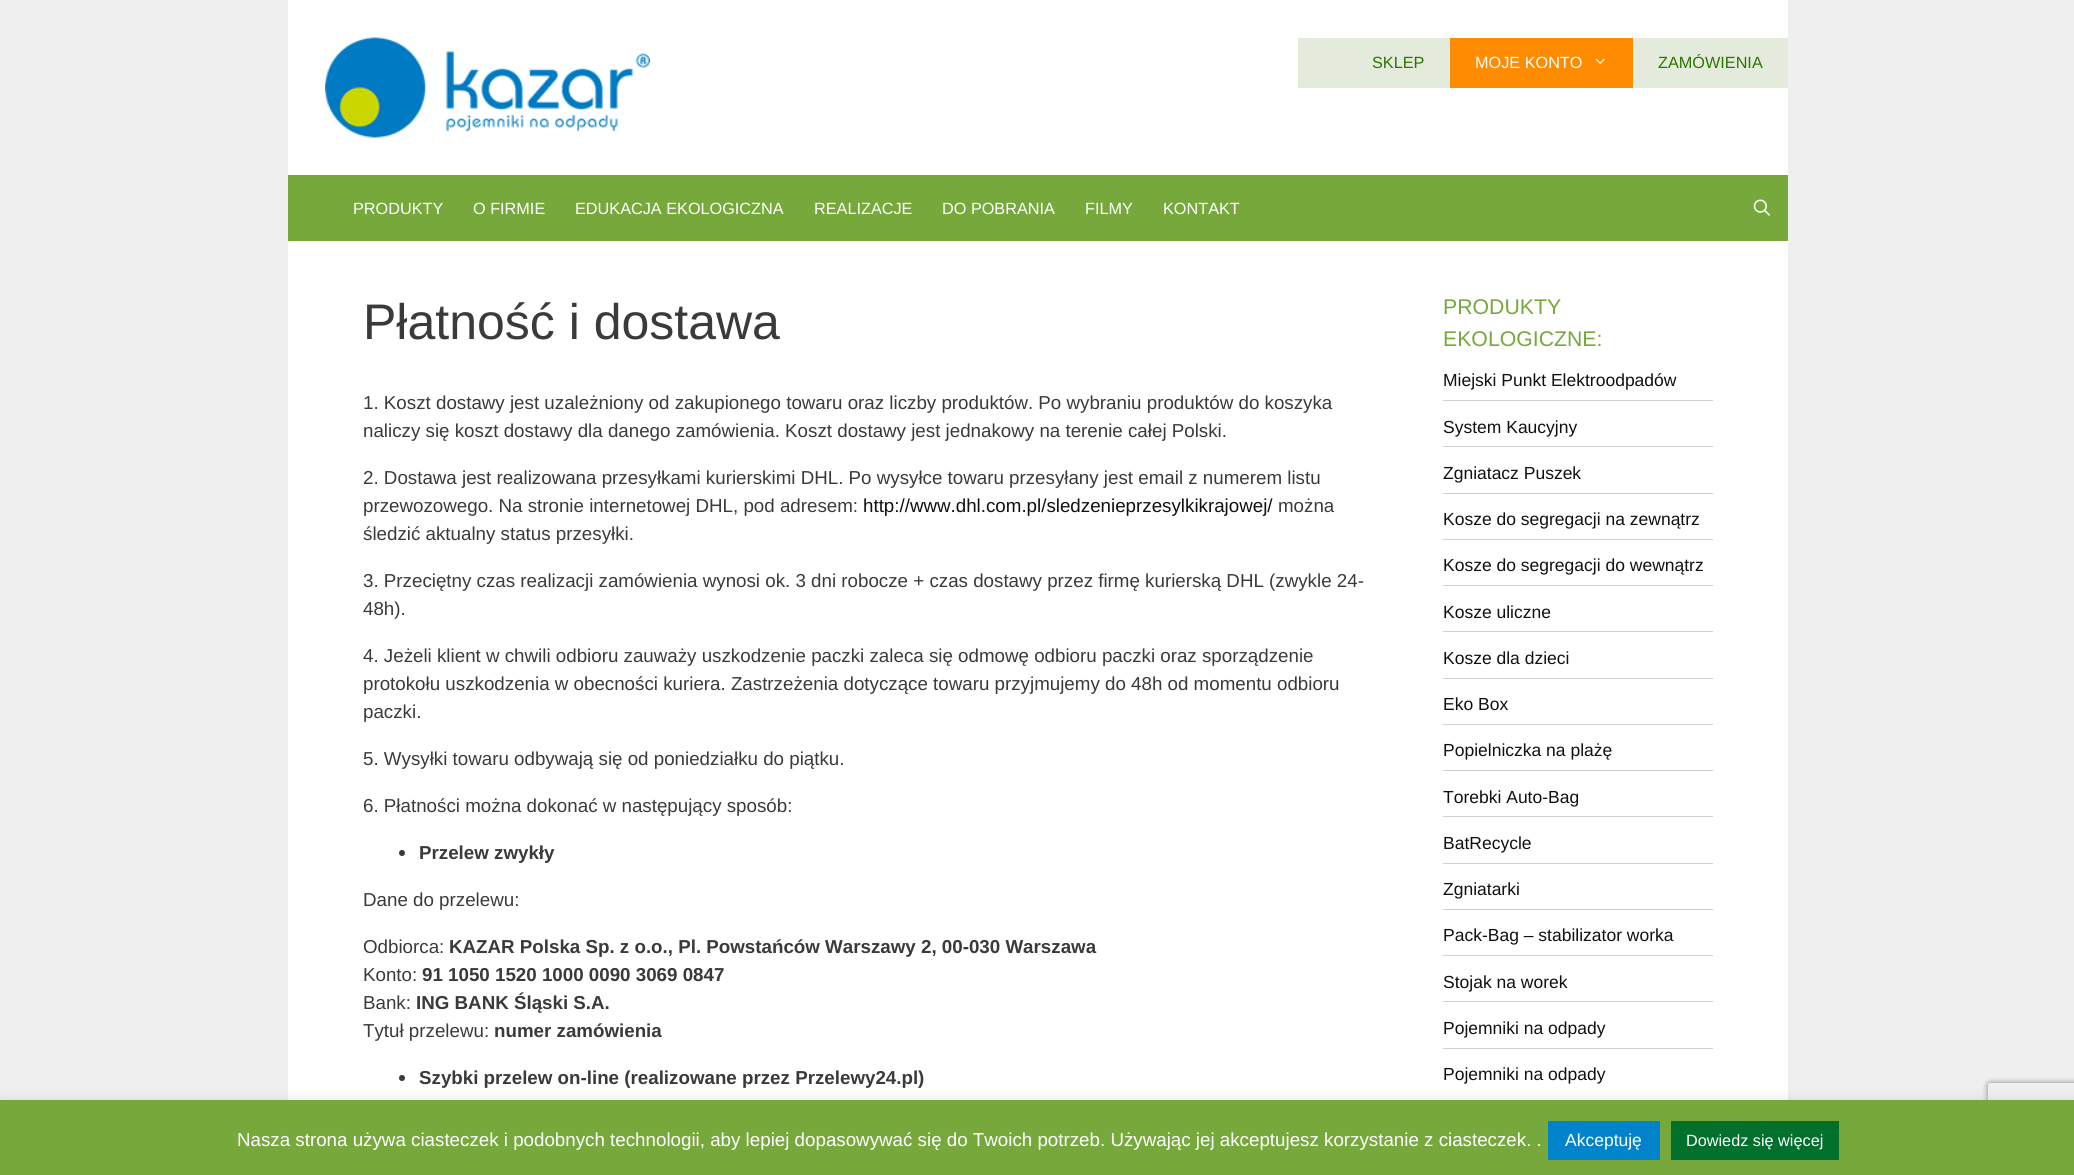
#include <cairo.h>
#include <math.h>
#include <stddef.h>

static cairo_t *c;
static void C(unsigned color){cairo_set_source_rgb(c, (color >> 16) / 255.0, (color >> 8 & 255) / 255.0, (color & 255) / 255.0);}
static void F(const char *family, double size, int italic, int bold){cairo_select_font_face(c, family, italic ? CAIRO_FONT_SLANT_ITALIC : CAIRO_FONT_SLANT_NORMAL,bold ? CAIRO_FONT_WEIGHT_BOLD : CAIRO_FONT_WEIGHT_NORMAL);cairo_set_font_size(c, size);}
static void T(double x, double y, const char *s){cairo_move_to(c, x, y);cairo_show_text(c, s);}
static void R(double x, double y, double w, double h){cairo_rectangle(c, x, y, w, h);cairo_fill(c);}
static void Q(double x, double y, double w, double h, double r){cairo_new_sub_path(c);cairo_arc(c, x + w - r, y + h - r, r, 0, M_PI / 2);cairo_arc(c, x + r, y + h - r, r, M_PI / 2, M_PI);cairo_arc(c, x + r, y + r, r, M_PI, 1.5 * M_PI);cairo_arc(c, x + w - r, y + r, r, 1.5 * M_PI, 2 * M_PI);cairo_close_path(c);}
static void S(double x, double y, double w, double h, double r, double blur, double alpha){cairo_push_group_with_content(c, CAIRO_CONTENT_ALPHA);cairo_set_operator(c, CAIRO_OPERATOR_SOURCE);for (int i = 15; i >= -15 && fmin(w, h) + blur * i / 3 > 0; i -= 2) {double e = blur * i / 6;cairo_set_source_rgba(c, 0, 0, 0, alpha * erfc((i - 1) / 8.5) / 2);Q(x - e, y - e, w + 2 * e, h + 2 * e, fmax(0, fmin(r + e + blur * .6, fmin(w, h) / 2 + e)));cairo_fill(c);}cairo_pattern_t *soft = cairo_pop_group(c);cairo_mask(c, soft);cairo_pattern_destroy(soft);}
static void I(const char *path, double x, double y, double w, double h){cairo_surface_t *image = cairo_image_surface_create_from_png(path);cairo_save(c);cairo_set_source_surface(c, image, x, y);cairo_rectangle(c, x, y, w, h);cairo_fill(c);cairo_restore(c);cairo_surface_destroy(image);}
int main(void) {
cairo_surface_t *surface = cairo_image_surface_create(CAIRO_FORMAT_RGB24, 2074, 1175);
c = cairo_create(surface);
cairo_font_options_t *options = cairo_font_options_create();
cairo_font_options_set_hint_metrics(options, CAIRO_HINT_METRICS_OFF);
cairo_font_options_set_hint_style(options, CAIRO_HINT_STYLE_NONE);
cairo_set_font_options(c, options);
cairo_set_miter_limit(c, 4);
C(0xefefef);
cairo_paint(c);
C(0xffffff);
R(288,0,1500,175);
I("1.png",325,37,325,101);
C(0xe4ebdc);
R(1298,38,490,50);
F("Liberation Sans",16.25,0,0);
C(0x2b7500);
T(1372,68,"SKLEP");
C(0xff8b00);
R(1450,38,183,50);
C(0xffffff);
T(1475,68,"MOJE KONTO");
I("2.png",1595,58,10,6);
C(0x2b7500);
T(1658,68,"ZAMÓWIENIA");
C(0x76a83b);
R(288,175,1500,66);
C(0xffffff);
T(353,214,"PRODUKTY");
T(473,214,"O FIRMIE");
T(575,214,"EDUKACJA EKOLOGICZNA");
T(814,214,"REALIZACJE");
T(942,214,"DO POBRANIA");
T(1085,214,"FILMY");
T(1163,214,"KONTAKT");
I("3.png",1753,199,17,17);
R(288,241,1500,859);
F("Liberation Sans",50,0,0);
C(0x3a3a3a);
T(363,339,"Płatność i dostawa");
F("Liberation Sans",18.75,0,0);
T(363,409,"1. Koszt dostawy jest uzależniony od zakupionego towaru oraz liczby produktów. Po wybraniu produktów do koszyka");
T(363,437,"naliczy się koszt dostawy dla danego zamówienia. Koszt dostawy jest jednakowy na terenie całej Polski.");
T(363,484,"2. Dostawa jest realizowana przesyłkami kurierskimi DHL. Po wysyłce towaru przesyłany jest email z numerem listu");
T(363,512,"przewozowego. Na stronie internetowej DHL, pod adresem:");
C(0x101010);
T(863,512,"http://www.dhl.com.pl/sledzenieprzesylkikrajowej/");
C(0x3a3a3a);
T(1278,512,"można");
T(363,540,"śledzić aktualny status przesyłki.");
T(363,587,"3. Przeciętny czas realizacji zamówienia wynosi ok. 3 dni robocze + czas dostawy przez firmę kurierską DHL (zwykle 24-");
T(363,615,"48h).");
T(363,662,"4. Jeżeli klient w chwili odbioru zauważy uszkodzenie paczki zaleca się odmowę odbioru paczki oraz sporządzenie");
T(363,690,"protokołu uszkodzenia w obecności kuriera. Zastrzeżenia dotyczące towaru przyjmujemy do 48h od momentu odbioru");
T(363,718,"paczki.");
T(363,765,"5. Wysyłki towaru odbywają się od poniedziałku do piątku.");
T(363,812,"6. Płatności można dokonać w następujący sposób:");
cairo_new_path(c);
cairo_arc(c,402,853,3,0,2 * M_PI);
cairo_fill(c);
F("Liberation Sans",18.75,0,1);
T(419,859,"Przelew zwykły");
F("Liberation Sans",18.75,0,0);
T(363,906,"Dane do przelewu:");
T(363,953,"Odbiorca:");
F("Liberation Sans",18.75,0,1);
T(449,953,"KAZAR Polska Sp. z o.o., Pl. Powstańców Warszawy 2, 00-030 Warszawa");
F("Liberation Sans",18.75,0,0);
T(363,981,"Konto:");
F("Liberation Sans",18.75,0,1);
T(422,981,"91 1050 1520 1000 0090 3069 0847");
F("Liberation Sans",18.75,0,0);
T(363,1009,"Bank:");
F("Liberation Sans",18.75,0,1);
T(416,1009,"ING BANK Śląski S.A.");
F("Liberation Sans",18.75,0,0);
T(363,1037,"Tytuł przelewu:");
F("Liberation Sans",18.75,0,1);
T(494,1037,"numer zamówienia");
cairo_new_path(c);
cairo_arc(c,402,1078,3,0,2 * M_PI);
cairo_fill(c);
T(419,1084,"Szybki przelew on-line (realizowane przez Przelewy24.pl)");
F("Liberation Sans",21.25,0,0);
C(0x76a83b);
T(1443,314,"PRODUKTY");
T(1443,346,"EKOLOGICZNE:");
C(0xcfcfcf);
R(1443,400,270,1);
F("Liberation Sans",17.5,0,0);
C(0x101010);
T(1443,386,"Miejski Punkt Elektroodpadów");
C(0xcfcfcf);
R(1443,446,270,1);
C(0x101010);
T(1443,433,"System Kaucyjny");
C(0xcfcfcf);
R(1443,493,270,1);
C(0x101010);
T(1443,479,"Zgniatacz Puszek");
C(0xcfcfcf);
R(1443,539,270,1);
C(0x101010);
T(1443,525,"Kosze do segregacji na zewnątrz");
C(0xcfcfcf);
R(1443,585,270,1);
C(0x101010);
T(1443,571,"Kosze do segregacji do wewnątrz");
C(0xcfcfcf);
R(1443,631,270,1);
C(0x101010);
T(1443,618,"Kosze uliczne");
C(0xcfcfcf);
R(1443,678,270,1);
C(0x101010);
T(1443,664,"Kosze dla dzieci");
C(0xcfcfcf);
R(1443,724,270,1);
C(0x101010);
T(1443,710,"Eko Box");
C(0xcfcfcf);
R(1443,770,270,1);
C(0x101010);
T(1443,756,"Popielniczka na plażę");
C(0xcfcfcf);
R(1443,816,270,1);
C(0x101010);
T(1443,803,"Torebki Auto-Bag");
C(0xcfcfcf);
R(1443,863,270,1);
C(0x101010);
T(1443,849,"BatRecycle");
C(0xcfcfcf);
R(1443,909,270,1);
C(0x101010);
T(1443,895,"Zgniatarki");
C(0xcfcfcf);
R(1443,955,270,1);
C(0x101010);
T(1443,941,"Pack-Bag – stabilizator worka");
C(0xcfcfcf);
R(1443,1001,270,1);
C(0x101010);
T(1443,988,"Stojak na worek");
C(0xcfcfcf);
R(1443,1048,270,1);
C(0x101010);
T(1443,1034,"Pojemniki na odpady");
T(1443,1080,"Pojemniki na odpady");
C(0xacabab);
S(0,1099,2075,75,0,6,.3);
cairo_save(c);
cairo_set_fill_rule(c,CAIRO_FILL_RULE_EVEN_ODD);
cairo_new_path(c);
cairo_move_to(c,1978,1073);
cairo_line_to(c,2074,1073);
cairo_line_to(c,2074,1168);
cairo_line_to(c,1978,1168);
cairo_close_path(c);
cairo_move_to(c,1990.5,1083);
cairo_line_to(c,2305.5,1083);
cairo_curve_to(c,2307,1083,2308,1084,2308,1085.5);
cairo_line_to(c,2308,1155.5);
cairo_curve_to(c,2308,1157,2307,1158,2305.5,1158);
cairo_line_to(c,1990.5,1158);
cairo_curve_to(c,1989,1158,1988,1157,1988,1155.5);
cairo_line_to(c,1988,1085.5);
cairo_curve_to(c,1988,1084,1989,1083,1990.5,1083);
cairo_close_path(c);
cairo_clip(c);
C(0x808080);
S(1988,1083,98,75,2.5,3,1);
cairo_restore(c);
C(0x76a83b);
R(0,1100,2074,75);
F("Liberation Sans",18.75,0,0);
C(0xffffff);
T(237,1146,"Nasza strona używa ciasteczek i podobnych technologii, aby lepiej dopasowywać się do Twoich potrzeb. Używając jej akceptujesz korzystanie z ciasteczek. .");
C(0x0083cb);
R(1548,1121,112,39);
F("Liberation Sans",17.5,0,0);
C(0xffffff);
T(1565,1146,"Akceptuję");
C(0x00702c);
R(1671,1121,168,39);
F("Liberation Sans",16.25,0,0);
C(0xffffff);
T(1686,1146,"Dowiedz się więcej");
cairo_surface_write_to_png(surface, "o.png");
cairo_font_options_destroy(options);
cairo_destroy(c);
cairo_surface_destroy(surface);
return 0;
}
